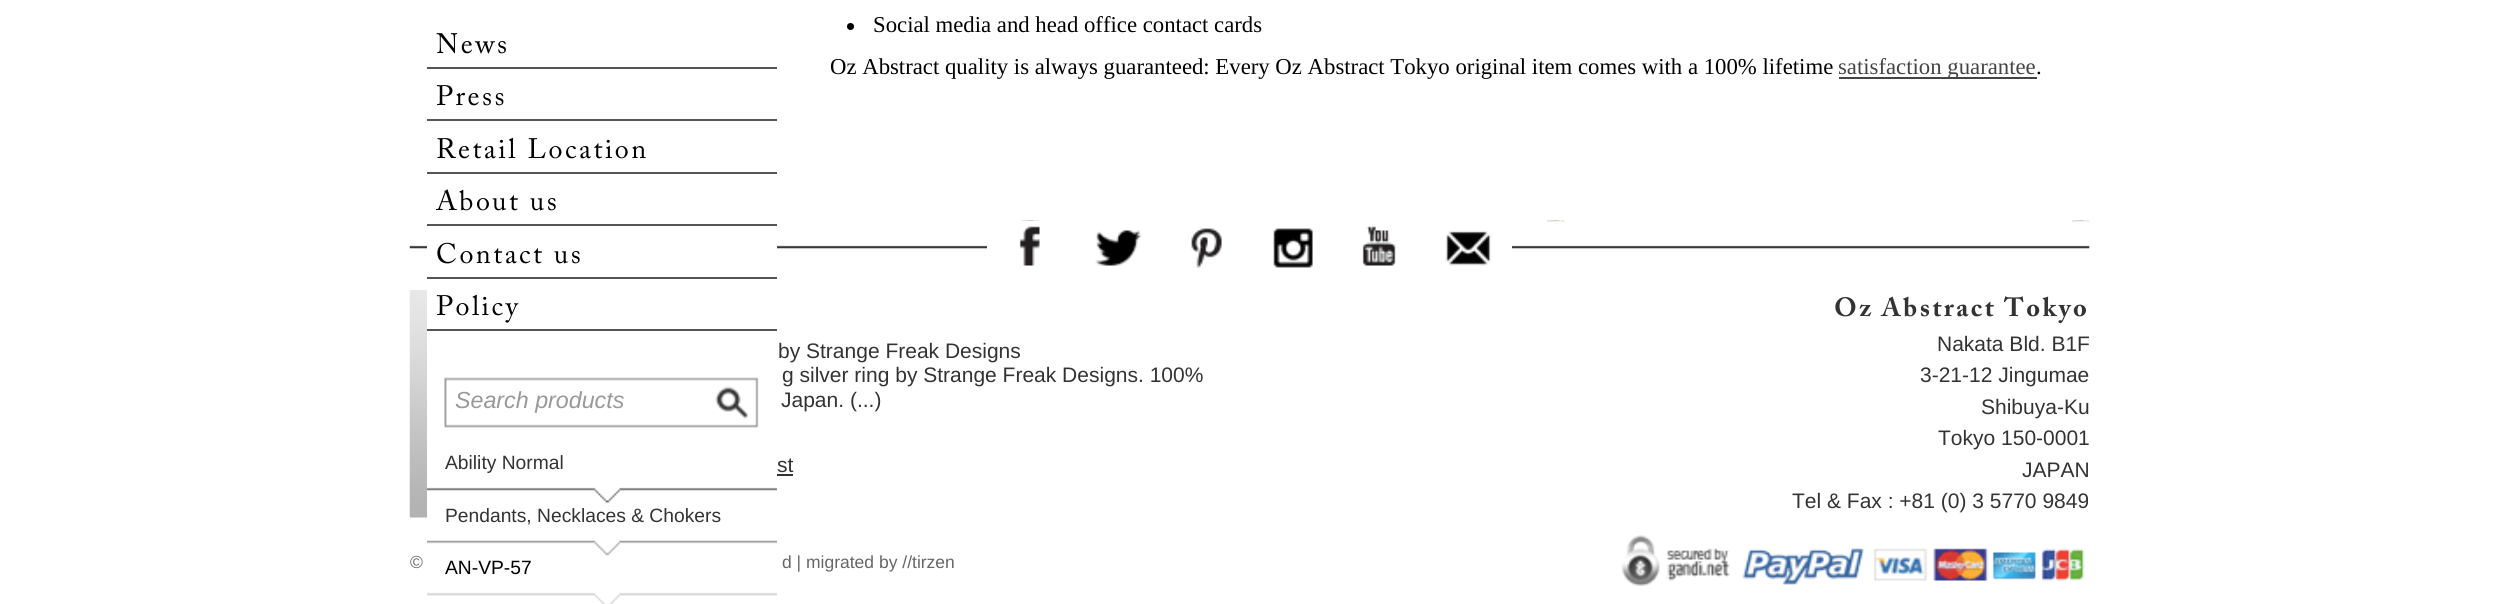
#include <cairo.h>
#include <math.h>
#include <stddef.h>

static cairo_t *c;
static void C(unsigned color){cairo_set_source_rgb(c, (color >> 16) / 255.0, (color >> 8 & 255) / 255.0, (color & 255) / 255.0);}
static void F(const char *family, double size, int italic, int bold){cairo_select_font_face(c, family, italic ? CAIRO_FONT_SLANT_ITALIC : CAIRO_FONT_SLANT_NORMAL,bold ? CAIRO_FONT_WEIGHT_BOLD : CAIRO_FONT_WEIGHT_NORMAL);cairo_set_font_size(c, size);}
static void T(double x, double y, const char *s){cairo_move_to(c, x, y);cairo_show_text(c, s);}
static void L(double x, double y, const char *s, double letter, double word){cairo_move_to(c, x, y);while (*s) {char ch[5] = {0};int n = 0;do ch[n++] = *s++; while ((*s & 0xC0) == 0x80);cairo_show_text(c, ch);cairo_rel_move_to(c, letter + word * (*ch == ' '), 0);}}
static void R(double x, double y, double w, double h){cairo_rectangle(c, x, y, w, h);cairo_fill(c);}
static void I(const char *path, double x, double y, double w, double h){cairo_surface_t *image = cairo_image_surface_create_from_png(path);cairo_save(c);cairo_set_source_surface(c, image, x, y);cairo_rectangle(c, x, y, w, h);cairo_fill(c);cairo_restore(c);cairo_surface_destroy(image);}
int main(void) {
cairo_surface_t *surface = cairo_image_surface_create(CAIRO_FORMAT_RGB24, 2499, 604);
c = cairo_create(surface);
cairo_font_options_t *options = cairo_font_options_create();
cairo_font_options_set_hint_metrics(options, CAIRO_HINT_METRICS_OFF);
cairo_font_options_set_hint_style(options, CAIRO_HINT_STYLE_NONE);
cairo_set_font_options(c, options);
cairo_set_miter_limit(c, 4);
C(0xffffff);
cairo_paint(c);
I("4.png",409,220,1681,29);
C(0xffffff);
R(427,220,350,29);
C(0x555555);
R(427,67,350,2);
F("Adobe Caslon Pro",28,0,0);
C(0x000000);
L(436,53,"News",2.5,0);
C(0x555555);
R(427,119,350,2);
C(0x000000);
L(436,105,"Press",2.5,0);
C(0x555555);
R(427,172,350,2);
C(0x000000);
L(436,158,"Retail Location",2.5,0);
C(0x555555);
R(427,224,350,2);
C(0x000000);
L(436,210,"About us",2.5,0);
C(0x555555);
R(427,277,350,2);
C(0x000000);
L(436,263,"Contact us",2.5,0);
C(0x555555);
R(427,329,350,2);
C(0x000000);
L(436,315,"Policy",2.5,0);
I("1.png",444,377,315,51);
F("Liberation Sans",23.25,1,0);
C(0x999999);
T(455,408,"Search products");
F("Liberation Sans",19.25,0,0);
C(0x333333);
T(445,469,"Ability Normal");
I("2.png",427,487,350,16);
T(445,522,"Pendants, Necklaces & Chokers");
I("3.png",427,540,350,64);
C(0x000000);
T(445,574,"AN-VP-57");
cairo_new_path(c);
cairo_arc(c,850.5,26.5,3.5,0,2 * M_PI);
cairo_fill(c);
F("Liberation Serif",22.75,0,0);
T(873,32,"Social media and head office contact cards");
T(830,74,"Oz Abstract quality is always guaranteed: Every Oz Abstract Tokyo original item comes with a 100% lifetime");
C(0x444444);
R(1839,77,198,2);
T(1838,74,"satisfaction guarantee");
C(0x000000);
T(2036,74,".");
C(0xffffff);
R(987,221,88,28);
I("5.png",1019,226,21,40);
R(1075,245,437,4);
I("6.png",1191,228,31,40);
I("7.png",1273,228,40,40);
I("8.png",1362,226,34,40);
I("9.png",1095,230,47,36);
I("10.png",1445,230,47,36);
I("11.png",409,290,18,228);
F("Liberation Sans",21,0,0);
C(0x333333);
T(778,358,"by Strange Freak Designs");
T(782,382,"g silver ring by Strange Freak Designs. 100%");
T(781,407,"Japan. (...)");
T(777,472,"st");
R(777,474,16,2);
F("Adobe Caslon Pro",26.25,0,1);
L(1834,316,"Oz Abstract Tokyo",2.6,0);
F("Liberation Sans",21,0,0);
T(1937,351,"Nakata Bld. B1F");
T(1920,382,"3-21-12 Jingumae");
T(1981,414,"Shibuya-Ku");
T(1938,445,"Tokyo 150-0001");
T(2022,477,"JAPAN");
T(1792,508,"Tel & Fax : +81 (0) 3 5770 9849");
I("12.png",1621,535,464,51);
F("Liberation Sans",17.5,0,0);
C(0x666666);
T(410,568,"©");
T(782,568,"d | migrated by //tirzen");
cairo_surface_write_to_png(surface, "o.png");
cairo_font_options_destroy(options);
cairo_destroy(c);
cairo_surface_destroy(surface);
return 0;
}
